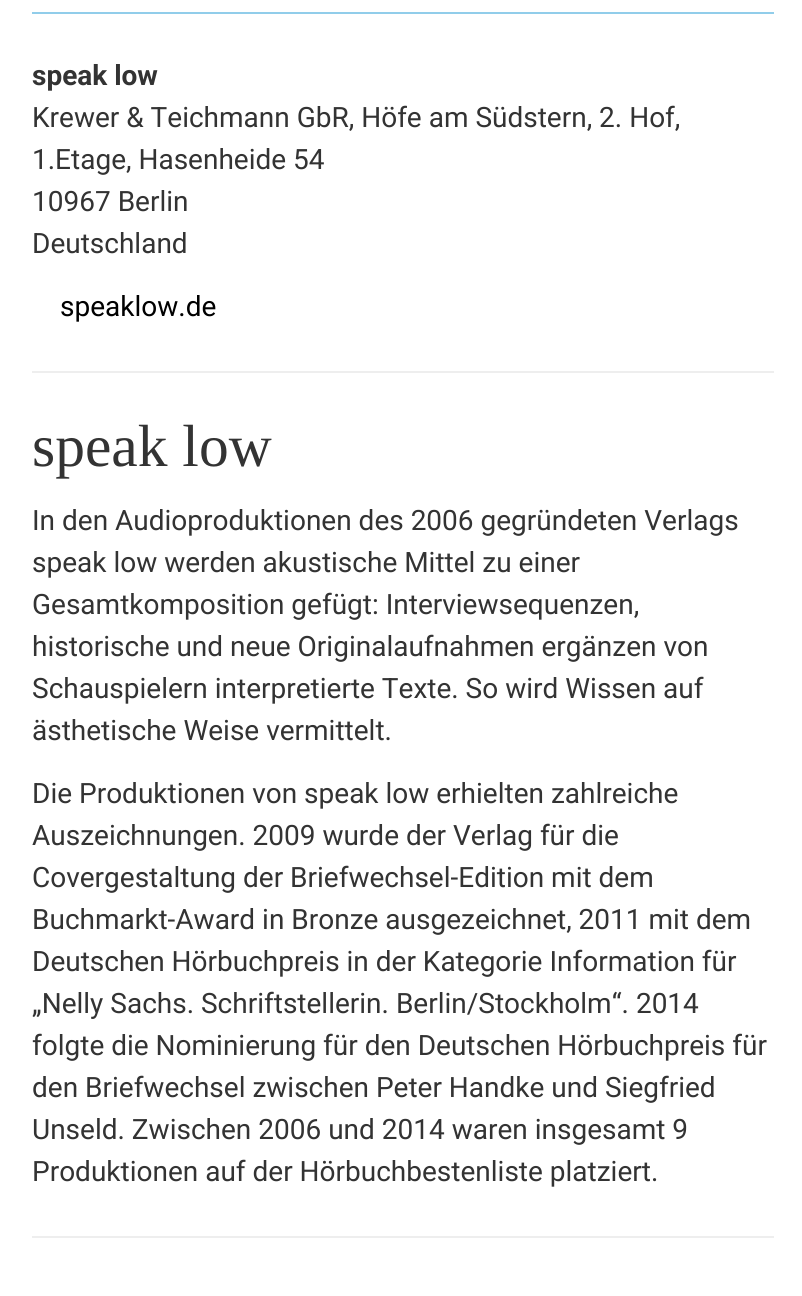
#include <cairo.h>
#include <math.h>
#include <stddef.h>

static cairo_t *c;
static void C(unsigned color){cairo_set_source_rgb(c, (color >> 16) / 255.0, (color >> 8 & 255) / 255.0, (color & 255) / 255.0);}
static void F(const char *family, double size, int italic, int bold){cairo_select_font_face(c, family, italic ? CAIRO_FONT_SLANT_ITALIC : CAIRO_FONT_SLANT_NORMAL,bold ? CAIRO_FONT_WEIGHT_BOLD : CAIRO_FONT_WEIGHT_NORMAL);cairo_set_font_size(c, size);}
static void T(double x, double y, const char *s){cairo_move_to(c, x, y);cairo_show_text(c, s);}
static void R(double x, double y, double w, double h){cairo_rectangle(c, x, y, w, h);cairo_fill(c);}
int main(void) {
cairo_surface_t *surface = cairo_image_surface_create(CAIRO_FORMAT_RGB24, 802, 1296);
c = cairo_create(surface);
cairo_font_options_t *options = cairo_font_options_create();
cairo_font_options_set_hint_metrics(options, CAIRO_HINT_METRICS_OFF);
cairo_font_options_set_hint_style(options, CAIRO_HINT_STYLE_NONE);
cairo_set_font_options(c, options);
cairo_set_miter_limit(c, 4);
C(0xffffff);
cairo_paint(c);
C(0x91cdea);
R(32,12,742,2);
F("Roboto",28,0,1);
C(0x333333);
T(32,85,"speak low");
F("Roboto",28,0,0);
T(32,127,"Krewer & Teichmann GbR, Höfe am Südstern, 2. Hof,");
T(32,169,"1.Etage, Hasenheide 54");
T(32,211,"10967 Berlin");
T(32,253,"Deutschland");
C(0x000000);
T(60,316,"speaklow.de");
C(0xeeeeee);
R(32,371,742,2);
F("Liberation Serif",59.5,0,0);
C(0x333333);
T(32,466,"speak low");
F("Roboto",28,0,0);
T(32,530,"In den Audioproduktionen des 2006 gegründeten Verlags");
T(32,572,"speak low werden akustische Mittel zu einer");
T(32,614,"Gesamtkomposition gefügt: Interviewsequenzen,");
T(32,656,"historische und neue Originalaufnahmen ergänzen von");
T(32,698,"Schauspielern interpretierte Texte. So wird Wissen auf");
T(32,740,"ästhetische Weise vermittelt.");
T(32,803,"Die Produktionen von speak low erhielten zahlreiche");
T(32,845,"Auszeichnungen. 2009 wurde der Verlag für die");
T(32,887,"Covergestaltung der Briefwechsel-Edition mit dem");
T(32,929,"Buchmarkt-Award in Bronze ausgezeichnet, 2011 mit dem");
T(32,971,"Deutschen Hörbuchpreis in der Kategorie Information für");
T(32,1013,"„Nelly Sachs. Schriftstellerin. Berlin/Stockholm“. 2014");
T(32,1055,"folgte die Nominierung für den Deutschen Hörbuchpreis für");
T(32,1097,"den Briefwechsel zwischen Peter Handke und Siegfried");
T(32,1139,"Unseld. Zwischen 2006 und 2014 waren insgesamt 9");
T(32,1181,"Produktionen auf der Hörbuchbestenliste platziert.");
C(0xeeeeee);
R(32,1236,742,2);
cairo_surface_write_to_png(surface, "o.png");
cairo_font_options_destroy(options);
cairo_destroy(c);
cairo_surface_destroy(surface);
return 0;
}
